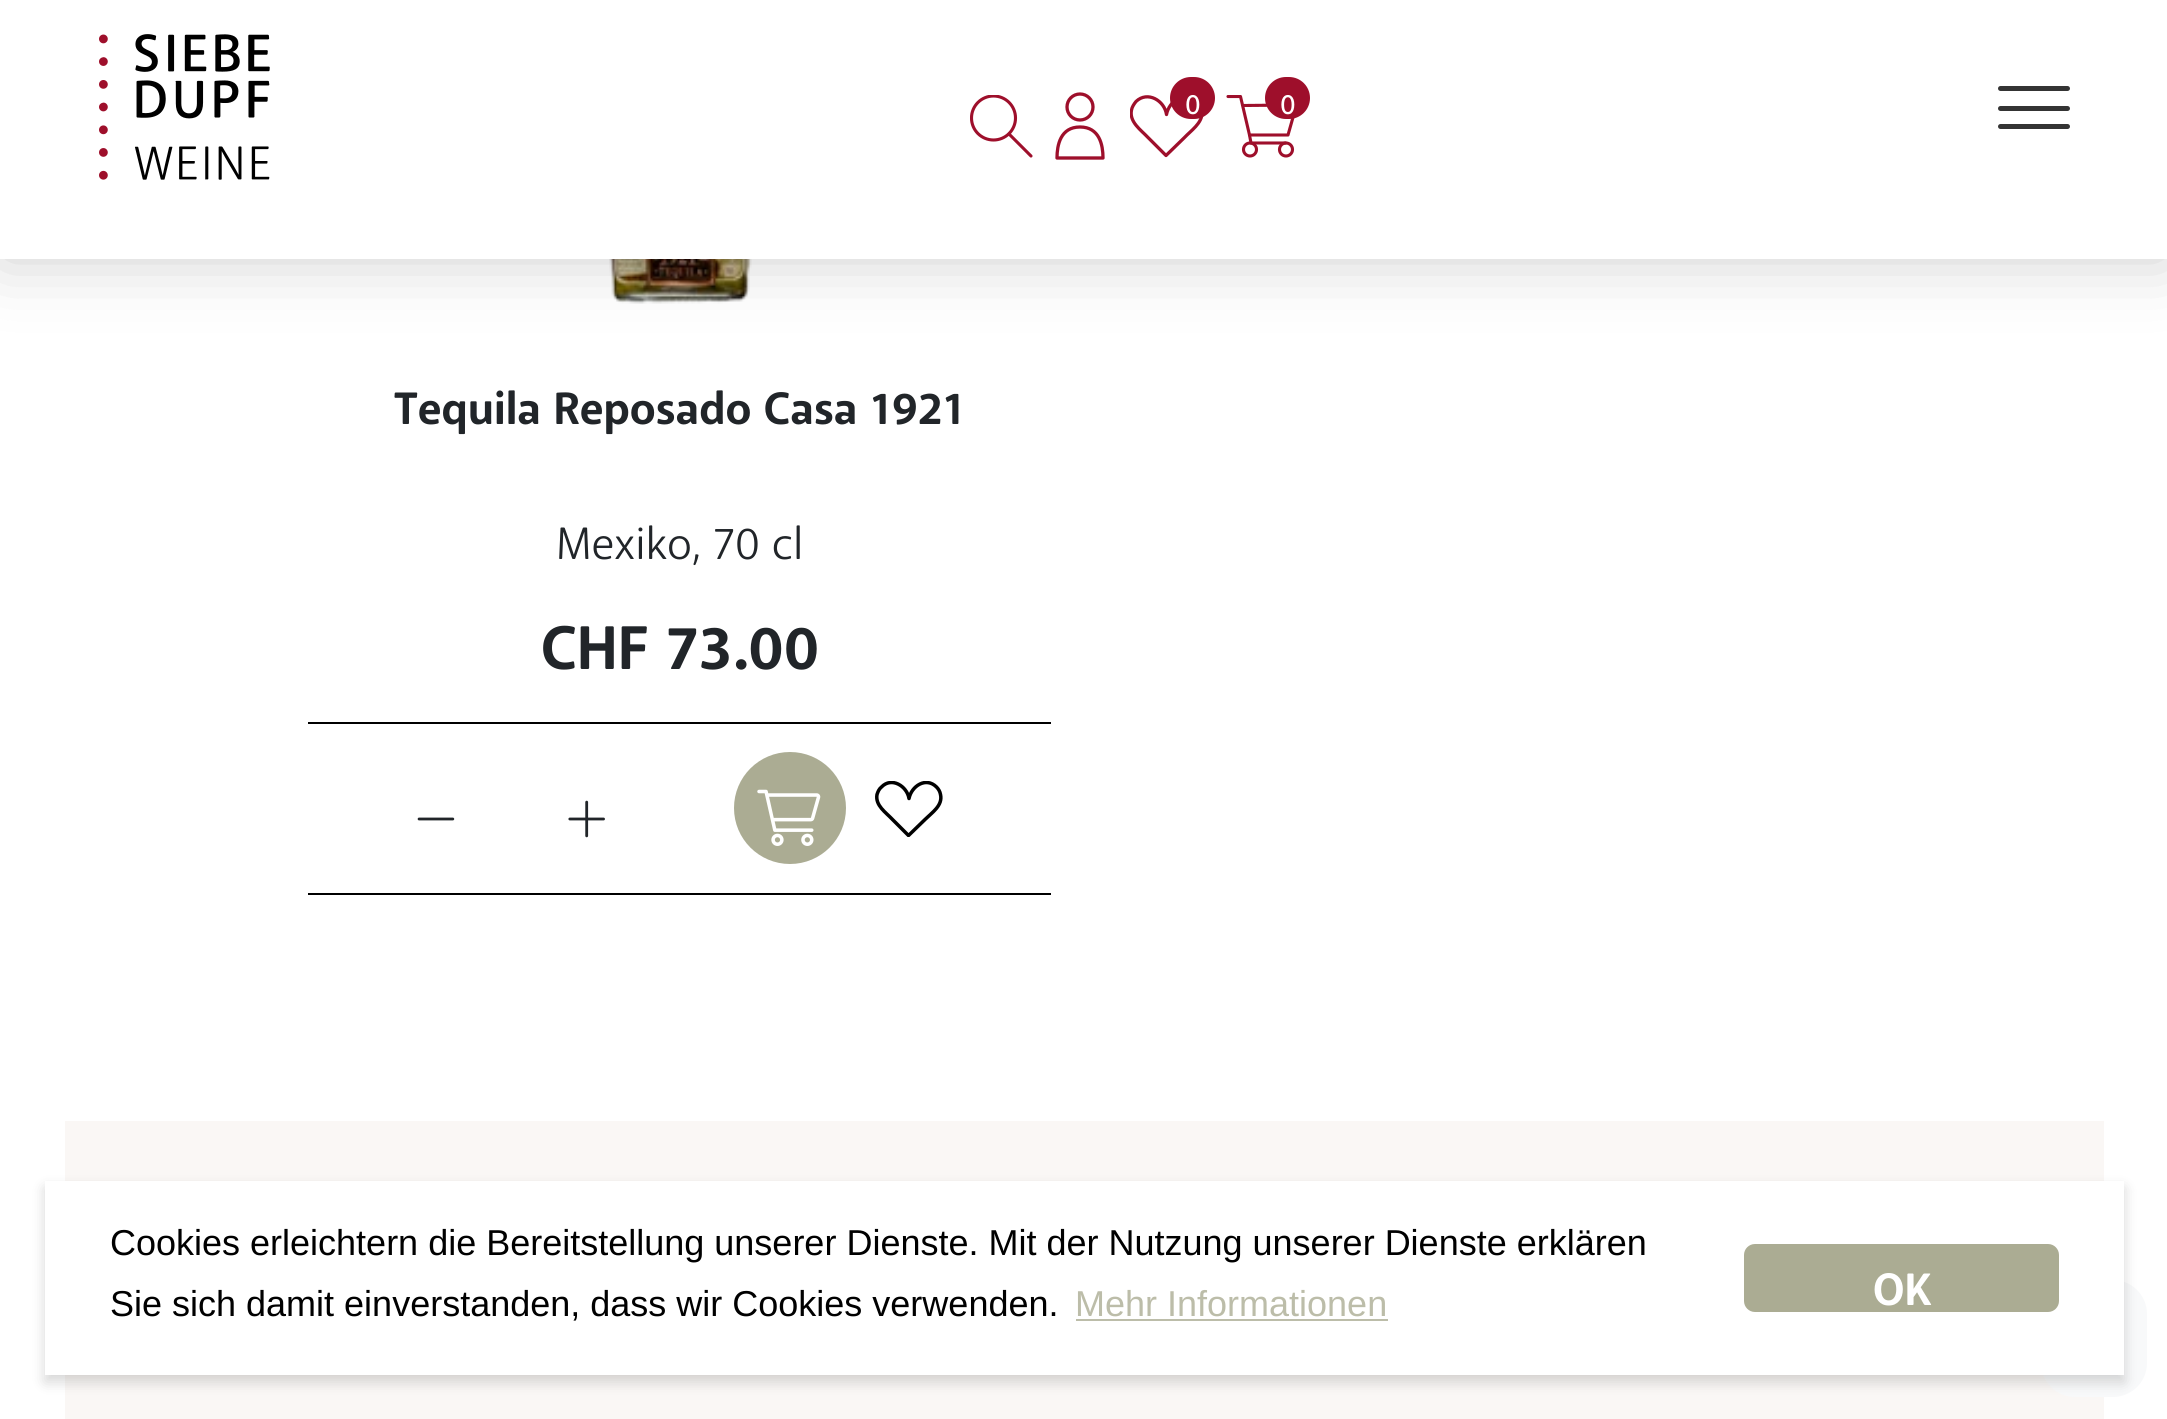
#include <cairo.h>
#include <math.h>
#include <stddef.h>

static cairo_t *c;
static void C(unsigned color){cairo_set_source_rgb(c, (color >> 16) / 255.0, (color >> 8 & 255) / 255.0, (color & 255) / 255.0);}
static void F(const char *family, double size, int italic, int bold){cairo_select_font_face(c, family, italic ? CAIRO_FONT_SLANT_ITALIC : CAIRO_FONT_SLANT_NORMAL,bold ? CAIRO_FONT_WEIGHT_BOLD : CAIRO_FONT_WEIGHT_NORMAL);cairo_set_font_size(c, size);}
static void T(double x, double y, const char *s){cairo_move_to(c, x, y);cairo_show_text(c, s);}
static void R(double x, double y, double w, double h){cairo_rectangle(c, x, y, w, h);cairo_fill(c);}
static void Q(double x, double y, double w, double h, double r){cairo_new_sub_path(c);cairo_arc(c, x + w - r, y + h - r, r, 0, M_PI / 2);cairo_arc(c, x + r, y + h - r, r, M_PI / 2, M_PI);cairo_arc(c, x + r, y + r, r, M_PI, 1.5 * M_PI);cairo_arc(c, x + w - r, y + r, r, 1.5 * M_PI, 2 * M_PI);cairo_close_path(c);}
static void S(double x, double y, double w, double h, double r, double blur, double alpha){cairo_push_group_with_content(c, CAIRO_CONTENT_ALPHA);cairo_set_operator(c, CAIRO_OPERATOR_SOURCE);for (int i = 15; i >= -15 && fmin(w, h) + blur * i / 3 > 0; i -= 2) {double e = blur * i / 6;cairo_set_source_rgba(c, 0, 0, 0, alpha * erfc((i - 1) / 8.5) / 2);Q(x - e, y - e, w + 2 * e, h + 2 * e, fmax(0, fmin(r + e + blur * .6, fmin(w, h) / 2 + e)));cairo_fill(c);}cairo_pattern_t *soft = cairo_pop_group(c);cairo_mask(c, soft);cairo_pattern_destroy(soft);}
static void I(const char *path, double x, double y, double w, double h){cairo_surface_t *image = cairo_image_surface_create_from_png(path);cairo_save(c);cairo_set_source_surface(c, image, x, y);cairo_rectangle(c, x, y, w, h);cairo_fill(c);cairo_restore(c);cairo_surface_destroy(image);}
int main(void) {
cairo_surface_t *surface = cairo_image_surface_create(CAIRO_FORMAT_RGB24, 2167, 1419);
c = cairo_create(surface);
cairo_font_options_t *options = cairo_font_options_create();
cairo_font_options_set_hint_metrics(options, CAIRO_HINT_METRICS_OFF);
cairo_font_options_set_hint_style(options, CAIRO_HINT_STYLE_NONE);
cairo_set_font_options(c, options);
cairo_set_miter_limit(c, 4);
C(0xffffff);
cairo_paint(c);
I("2.png",609,259,143,45);
C(0x000000);
S(0,0,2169,259,0,34,.2);
C(0xffffff);
R(0,0,2167,259);
I("1.png",99,34,171,146);
cairo_save(c);
cairo_rectangle(c,970,95,63,63);
cairo_clip(c);
cairo_arc(c,993.5,118,22,0,2 * M_PI);
C(0x9e0f2b);
cairo_set_line_width(c,3.1);
cairo_stroke(c);
cairo_restore(c);
cairo_arc(c,1080,107,13,0,2 * M_PI);
C(0x9e0f2b);
cairo_set_line_width(c,3.3);
cairo_stroke(c);
cairo_save(c);
cairo_rectangle(c,1130,95,74,63);
cairo_clip(c);
cairo_new_path(c);
cairo_move_to(c,1166.5,114.5);
cairo_curve_to(c,1169,101,1185,89.5,1197,101);
cairo_curve_to(c,1200,104,1202,108,1202,112.5);
cairo_curve_to(c,1202.5,123,1190.5,131,1184.5,137.5);
cairo_line_to(c,1166,155.5);
cairo_line_to(c,1148,137.5);
cairo_curve_to(c,1141,130,1129,122,1131.5,110);
cairo_curve_to(c,1132,107,1134,104,1136,101.5);
cairo_curve_to(c,1147.5,90.5,1164.5,100.5,1166.5,114.5);
cairo_set_line_cap(c,CAIRO_LINE_CAP_ROUND);
cairo_set_line_join(c,CAIRO_LINE_JOIN_ROUND);
cairo_stroke(c);
cairo_restore(c);
Q(1170,77,45,42,21);
cairo_fill(c);
F("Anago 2",27,0,1);
C(0xffffff);
T(1185,114,"0");
cairo_save(c);
cairo_rectangle(c,1226,95,72,63);
cairo_clip(c);
cairo_new_path(c);
cairo_move_to(c,1228,96.5);
cairo_line_to(c,1240.5,96.5);
cairo_line_to(c,1249.5,135);
cairo_line_to(c,1288,135);
cairo_line_to(c,1296.5,105);
cairo_line_to(c,1242.5,105.5);
C(0x9e0f2b);
cairo_set_line_width(c,3.1);
cairo_set_line_cap(c,CAIRO_LINE_CAP_ROUND);
cairo_set_line_join(c,CAIRO_LINE_JOIN_ROUND);
cairo_stroke(c);
cairo_restore(c);
C(0x9e0f2b);
Q(1265,77,45,42,21);
cairo_fill(c);
C(0xffffff);
T(1280,114,"0");
cairo_new_path(c);
cairo_arc(c,1250,149.5,6.5,0,2 * M_PI);
C(0x9e0f2b);
cairo_set_line_width(c,3.1);
cairo_stroke(c);
cairo_arc(c,1286,149.5,6.5,0,2 * M_PI);
cairo_stroke(c);
cairo_new_path(c);
cairo_move_to(c,1249.5,135);
cairo_line_to(c,1251,143);
cairo_line_to(c,1285.5,143);
cairo_set_line_cap(c,CAIRO_LINE_CAP_ROUND);
cairo_set_line_join(c,CAIRO_LINE_JOIN_ROUND);
cairo_stroke(c);
cairo_new_path(c);
cairo_move_to(c,1103,158);
cairo_line_to(c,1057,158);
cairo_curve_to(c,1057,145,1060.5,127,1080,127);
cairo_curve_to(c,1099.5,127,1103,145,1103,158);
cairo_close_path(c);
cairo_set_line_width(c,3.3);
cairo_stroke(c);
cairo_new_path(c);
cairo_move_to(c,1009,134);
cairo_line_to(c,1031,156);
cairo_set_line_width(c,3.1);
cairo_stroke(c);
C(0x343434);
Q(1998,86,72,5,2.5);
cairo_fill(c);
Q(1998,106,72,5,2.5);
cairo_fill(c);
Q(1998,124,72,5,2.5);
cairo_fill(c);
F("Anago",45,0,1);
C(0x212529);
T(394,424,"Tequila Reposado Casa 1921");
F("Anago",45,0,0);
T(556,559,"Mexiko, 70 cl");
F("Anago",61,0,1);
T(541,669,"CHF 73.00");
C(0x000000);
R(308,722,743,2);
R(308,893,743,2);
I("3.png",417,817,38,4);
I("4.png",568,800,37,38);
C(0xabac93);
cairo_arc(c,790,808,56,0,2 * M_PI);
cairo_fill(c);
I("5.png",757,789,64,57);
cairo_save(c);
cairo_rectangle(c,875,781,68,56);
cairo_clip(c);
cairo_new_path(c);
cairo_move_to(c,909,798.5);
cairo_curve_to(c,911.5,786,926,776.5,936.5,787);
cairo_curve_to(c,938.5,789,940,791.5,940.5,794.5);
cairo_curve_to(c,943,805.5,932,812.5,925,819.5);
cairo_line_to(c,908.5,835.5);
cairo_line_to(c,892.5,819.5);
cairo_curve_to(c,886,812.5,875,805.5,877,794.5);
cairo_curve_to(c,878,791.5,879,789,881.5,787);
cairo_curve_to(c,891.5,776.5,907,786,909,798.5);
C(0x000000);
cairo_set_line_width(c,3.5);
cairo_stroke(c);
cairo_restore(c);
C(0xfaf7f5);
R(65,1121,2039,298);
C(0xf8f9fa);
Q(2041,1280,106,117,34);
cairo_fill(c);
C(0x000000);
S(45,1188,2079,194,0,7,.16);
C(0xffffff);
R(45,1181,2079,194);
F("Liberation Sans",36,0,0);
C(0x000000);
T(110,1255,"Cookies erleichtern die Bereitstellung unserer Dienste. Mit der Nutzung unserer Dienste erklären");
T(110,1316,"Sie sich damit einverstanden, dass wir Cookies verwenden.");
C(0xbcbda9);
T(1075,1316,"Mehr Informationen");
R(1076,1319,312,2);
C(0xabac93);
Q(1744,1244,315,68,11);
cairo_fill(c);
F("Anago",45,0,1);
C(0xffffff);
T(1873,1305,"OK");
cairo_surface_write_to_png(surface, "o.png");
cairo_font_options_destroy(options);
cairo_destroy(c);
cairo_surface_destroy(surface);
return 0;
}
